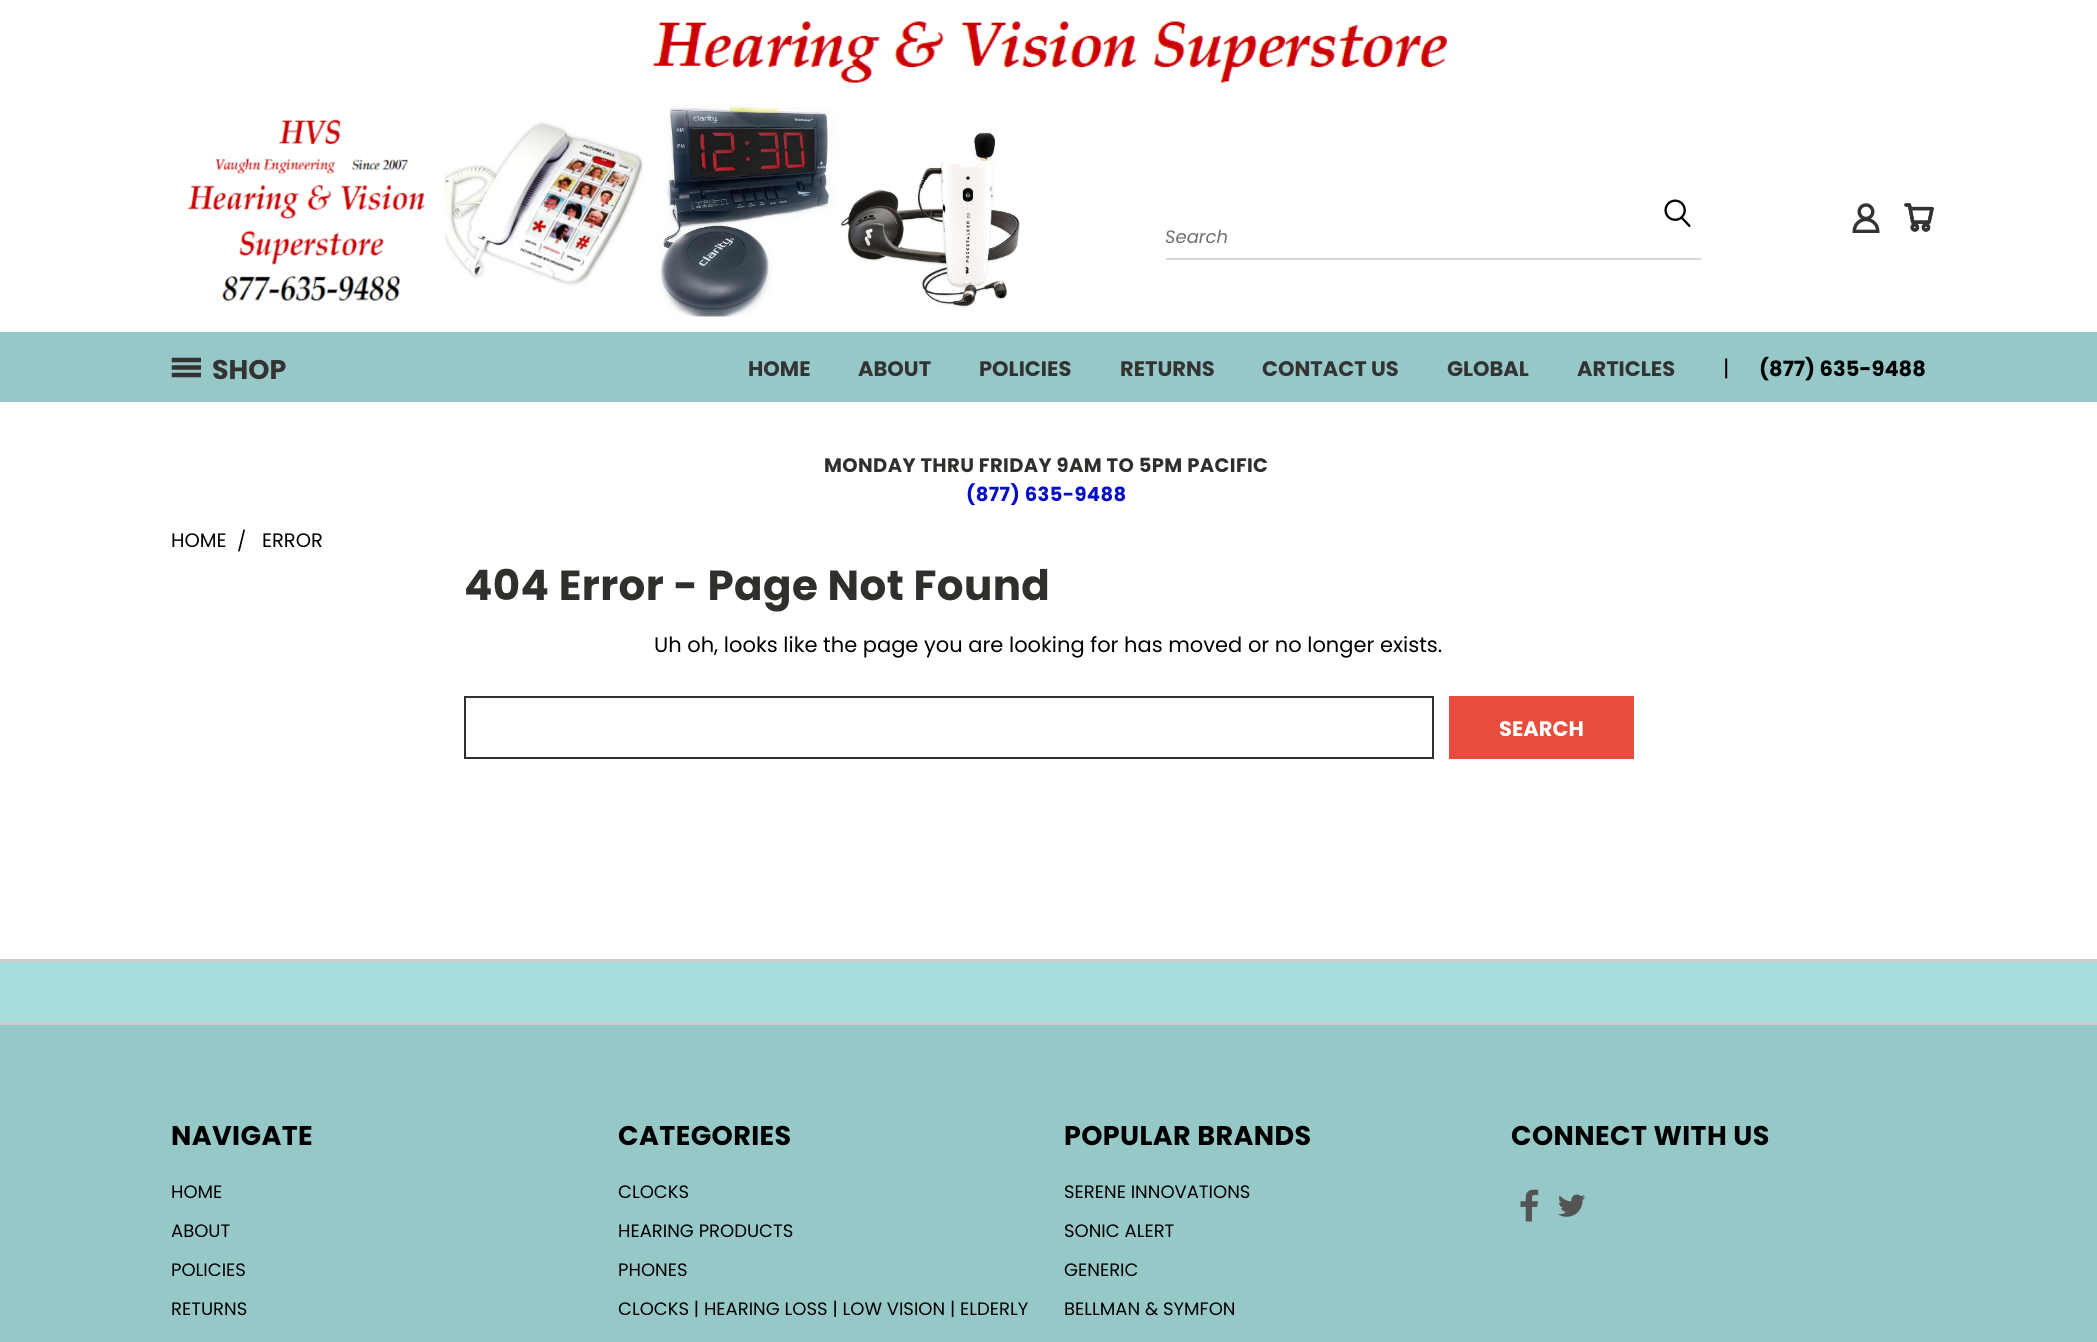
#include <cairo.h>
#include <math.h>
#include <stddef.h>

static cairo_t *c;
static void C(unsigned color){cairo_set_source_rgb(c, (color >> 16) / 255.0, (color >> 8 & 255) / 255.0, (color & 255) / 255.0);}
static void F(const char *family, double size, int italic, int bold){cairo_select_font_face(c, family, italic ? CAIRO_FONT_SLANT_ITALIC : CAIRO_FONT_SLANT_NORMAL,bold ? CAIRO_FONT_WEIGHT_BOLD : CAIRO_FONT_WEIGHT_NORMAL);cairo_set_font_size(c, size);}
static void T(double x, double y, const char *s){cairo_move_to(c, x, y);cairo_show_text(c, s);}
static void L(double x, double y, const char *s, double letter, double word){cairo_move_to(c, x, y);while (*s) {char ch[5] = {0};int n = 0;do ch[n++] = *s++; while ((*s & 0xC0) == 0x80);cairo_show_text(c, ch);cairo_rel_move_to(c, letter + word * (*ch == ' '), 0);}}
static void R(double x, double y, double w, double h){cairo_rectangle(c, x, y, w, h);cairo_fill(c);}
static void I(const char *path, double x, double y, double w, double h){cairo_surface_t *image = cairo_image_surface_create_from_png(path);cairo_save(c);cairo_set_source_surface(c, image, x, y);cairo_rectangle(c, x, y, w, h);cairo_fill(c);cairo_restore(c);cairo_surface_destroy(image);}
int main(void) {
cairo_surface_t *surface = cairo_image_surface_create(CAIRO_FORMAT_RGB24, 2097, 1342);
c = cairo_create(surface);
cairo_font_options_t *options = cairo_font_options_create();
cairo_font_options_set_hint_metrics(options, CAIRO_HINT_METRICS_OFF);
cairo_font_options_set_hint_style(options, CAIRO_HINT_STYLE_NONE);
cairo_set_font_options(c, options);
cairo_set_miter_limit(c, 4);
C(0xffffff);
cairo_paint(c);
I("1.png",652,21,796,62);
I("2.png",187,103,833,214);
I("3.png",1852,203,28,30);
I("4.png",1904,203,30,29);
I("5.png",1664,199,27,29);
C(0xd7d7d7);
R(1166,258,535,2);
F("Poppins",18,1,0);
C(0x70706e);
T(1165,243,"Search");
C(0x97c8c8);
R(0,332,2097,70);
I("6.png",171,357,30,21);
F("Poppins",27,0,1);
C(0x333333);
T(212,379,"SHOP");
F("Poppins",21,0,1);
T(748,376,"HOME");
T(858,376,"ABOUT");
T(979,376,"POLICIES");
T(1120,376,"RETURNS");
T(1262,376,"CONTACT US");
T(1447,376,"GLOBAL");
T(1577,376,"ARTICLES");
F("Poppins",22,0,0);
C(0x000000);
T(1723,376,"|");
F("Poppins",21,0,1);
T(1759,376,"(877) 635-9488");
F("Poppins",19.5,0,1);
C(0x2f2f2b);
L(824,472,"MONDAY THRU FRIDAY 9AM TO 5PM PACIFIC",.4,0);
C(0x0710c4);
L(966,501,"(877) 635-9488",.4,0);
F("Poppins",19.5,0,0);
C(0x000000);
T(171,547,"HOME");
T(237,548,"/");
T(262,547,"ERROR");
F("Poppins",42,0,1);
C(0x2f2f2b);
L(464,600,"404 Error - Page Not Found",.4,0);
F("Poppins",21,0,0);
C(0x000000);
T(654,652,"Uh oh, looks like the page you are looking for has moved or no longer exists.");
cairo_rectangle(c,465,697,968,61);
C(0x2f2f2b);
cairo_stroke(c);
C(0xe74c3c);
R(1449,696,185,63);
F("Poppins",21,0,1);
C(0xffffff);
T(1499,736,"SEARCH");
C(0xa6dcdc);
R(0,962,2097,60);
C(0xcdcccc);
R(0,959,2097,3);
C(0x97c8c8);
R(0,1025,2097,317);
C(0xcdcccc);
R(0,1022,2097,3);
F("Poppins",27,0,1);
C(0x000000);
L(171,1145,"NAVIGATE",.4,0);
F("Poppins",18,0,0);
T(171,1198,"HOME");
T(171,1237,"ABOUT");
T(171,1276,"POLICIES");
T(171,1315,"RETURNS");
F("Poppins",27,0,1);
L(618,1145,"CATEGORIES",.4,0);
F("Poppins",18,0,0);
T(618,1198,"CLOCKS");
T(618,1237,"HEARING PRODUCTS");
T(618,1276,"PHONES");
T(618,1315,"CLOCKS | HEARING LOSS | LOW VISION | ELDERLY");
F("Poppins",27,0,1);
L(1064,1145,"POPULAR BRANDS",.4,0);
F("Poppins",18,0,0);
T(1064,1198,"SERENE INNOVATIONS");
T(1064,1237,"SONIC ALERT");
T(1064,1276,"GENERIC");
T(1064,1315,"BELLMAN & SYMFON");
F("Poppins",27,0,1);
L(1511,1145,"CONNECT WITH US",.4,0);
I("7.png",1520,1189,19,33);
I("8.png",1558,1194,28,23);
cairo_surface_write_to_png(surface, "o.png");
cairo_font_options_destroy(options);
cairo_destroy(c);
cairo_surface_destroy(surface);
return 0;
}
